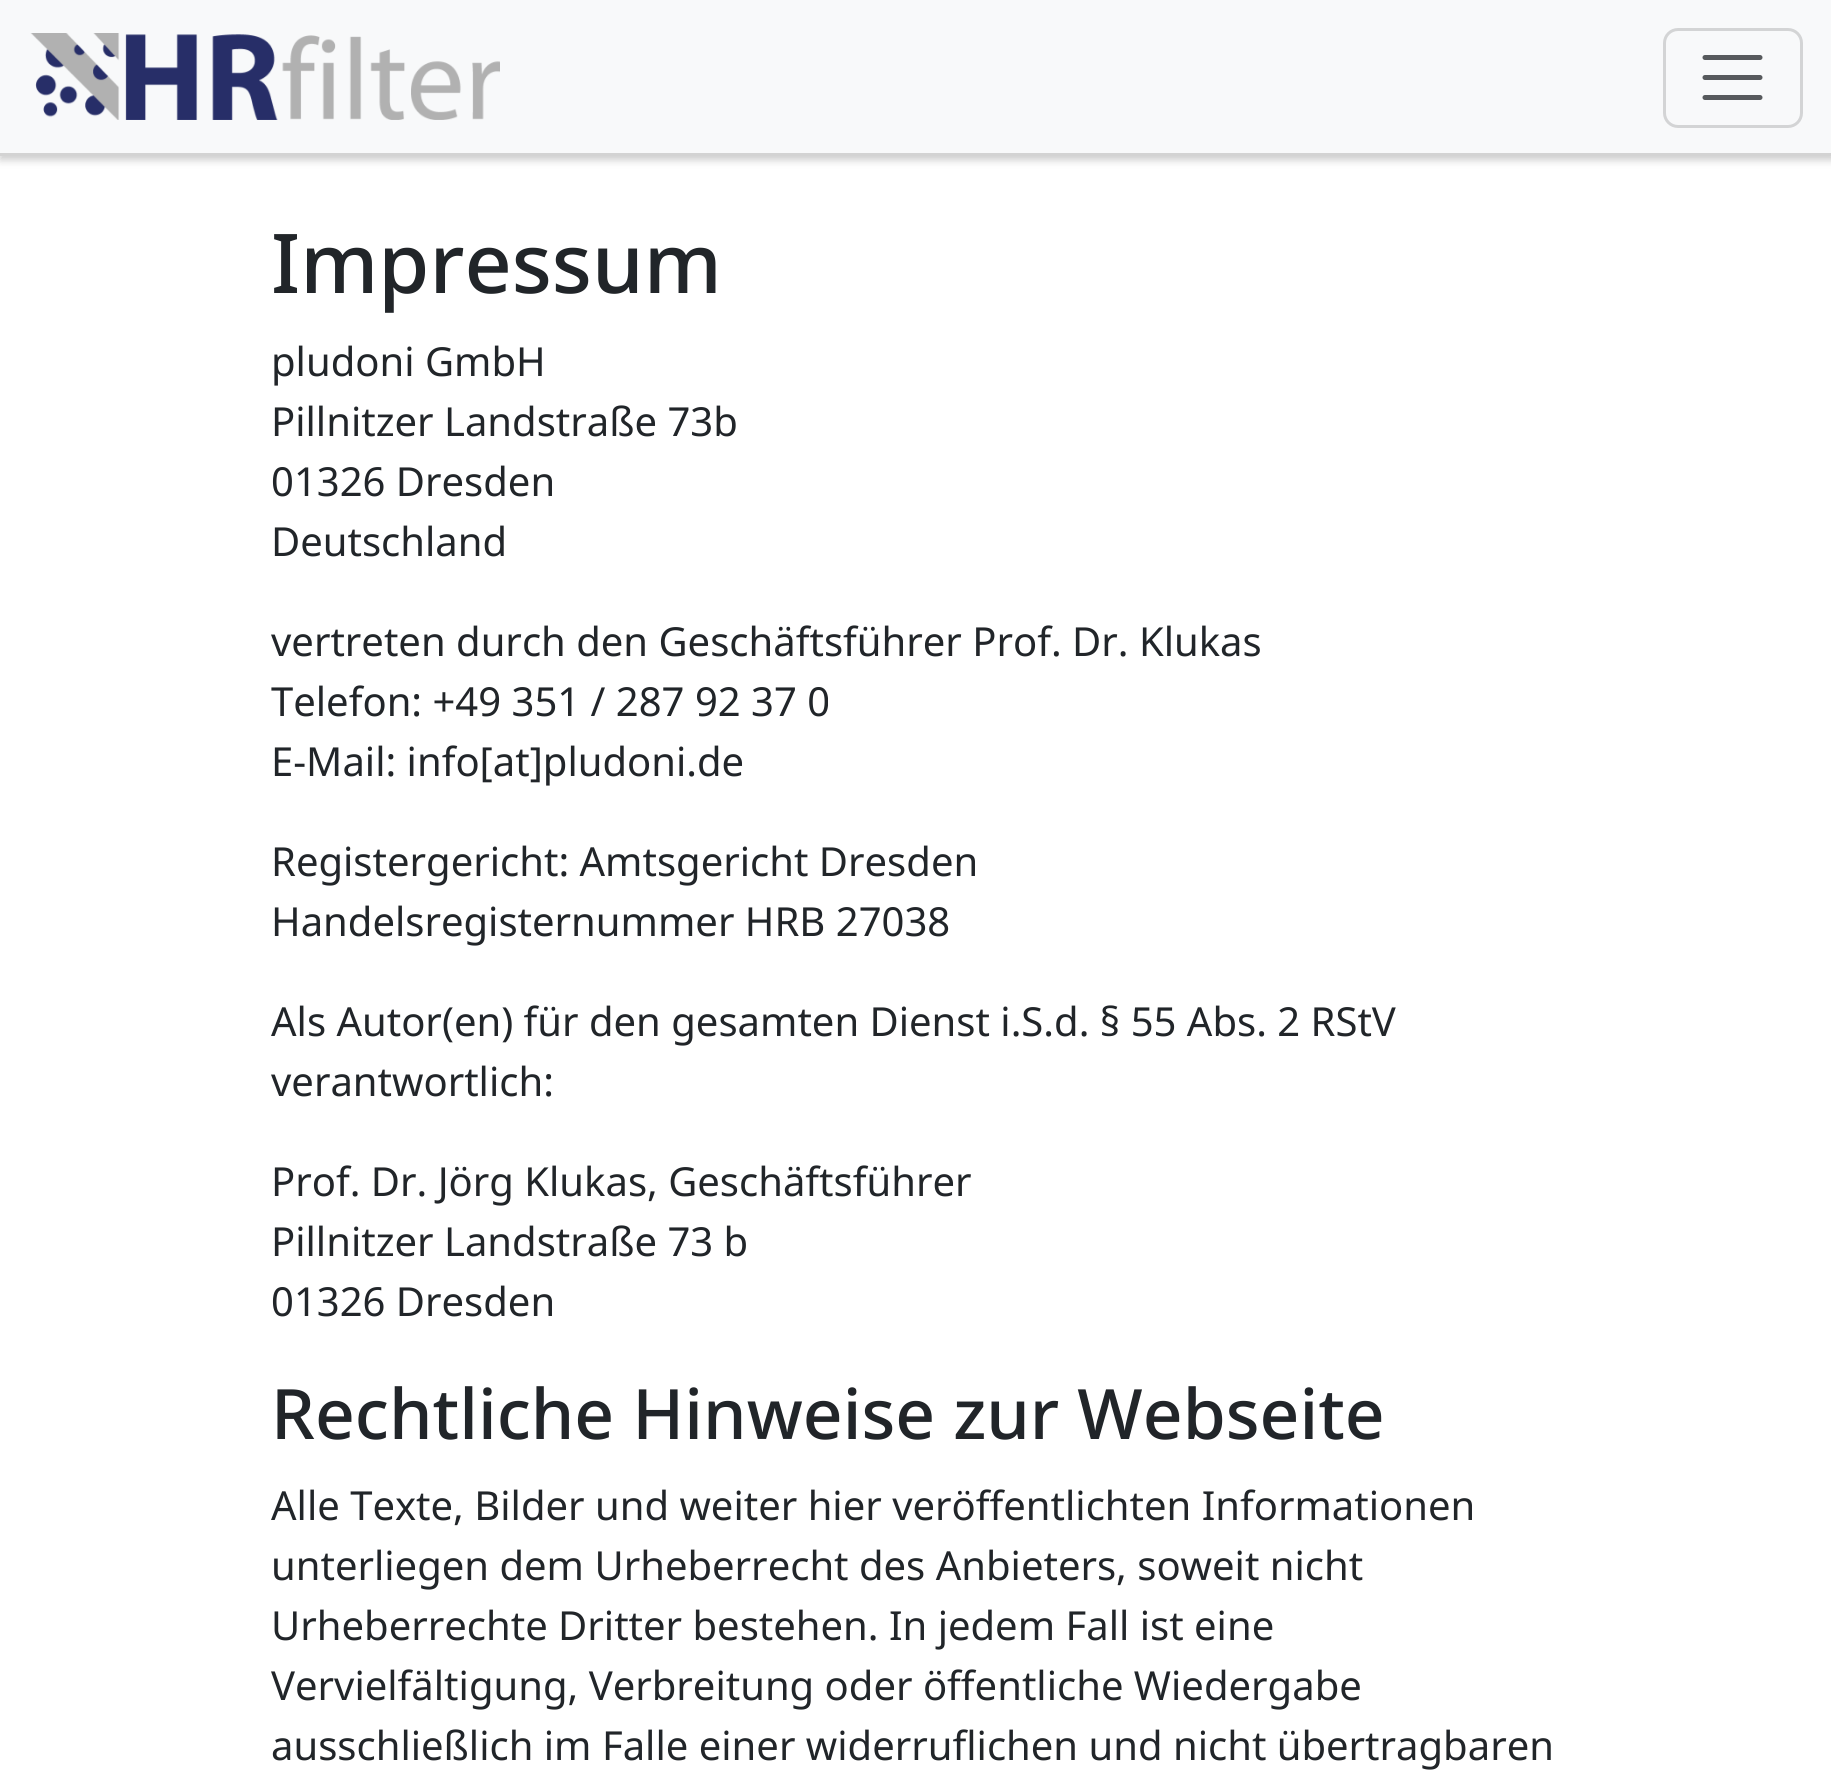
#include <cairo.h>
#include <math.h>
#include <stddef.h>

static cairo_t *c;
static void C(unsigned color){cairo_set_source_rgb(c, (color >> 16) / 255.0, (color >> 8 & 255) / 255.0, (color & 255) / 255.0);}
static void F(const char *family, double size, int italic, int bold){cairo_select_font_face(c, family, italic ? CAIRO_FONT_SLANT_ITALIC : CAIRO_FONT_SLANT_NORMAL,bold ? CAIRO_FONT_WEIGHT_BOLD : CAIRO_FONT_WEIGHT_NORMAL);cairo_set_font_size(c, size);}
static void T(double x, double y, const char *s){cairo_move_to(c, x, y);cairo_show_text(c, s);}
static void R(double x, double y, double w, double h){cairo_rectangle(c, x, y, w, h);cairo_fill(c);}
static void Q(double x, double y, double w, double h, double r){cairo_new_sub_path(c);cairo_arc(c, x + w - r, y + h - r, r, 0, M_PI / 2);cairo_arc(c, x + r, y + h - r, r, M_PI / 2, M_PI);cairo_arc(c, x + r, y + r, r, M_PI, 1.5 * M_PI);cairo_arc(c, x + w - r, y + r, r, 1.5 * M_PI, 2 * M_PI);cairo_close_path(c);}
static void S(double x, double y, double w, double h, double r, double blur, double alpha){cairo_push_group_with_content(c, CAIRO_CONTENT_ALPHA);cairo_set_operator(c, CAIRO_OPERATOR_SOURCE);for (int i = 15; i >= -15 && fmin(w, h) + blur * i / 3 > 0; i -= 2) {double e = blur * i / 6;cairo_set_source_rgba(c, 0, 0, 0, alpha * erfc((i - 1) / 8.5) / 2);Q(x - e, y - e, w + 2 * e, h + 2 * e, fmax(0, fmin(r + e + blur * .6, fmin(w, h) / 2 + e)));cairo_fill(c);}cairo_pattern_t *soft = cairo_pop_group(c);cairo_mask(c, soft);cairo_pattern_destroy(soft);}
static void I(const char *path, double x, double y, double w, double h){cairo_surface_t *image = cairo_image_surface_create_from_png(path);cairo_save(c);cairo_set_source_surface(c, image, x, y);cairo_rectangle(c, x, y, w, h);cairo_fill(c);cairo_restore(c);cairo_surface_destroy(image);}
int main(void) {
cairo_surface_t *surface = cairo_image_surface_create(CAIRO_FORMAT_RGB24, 1831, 1777);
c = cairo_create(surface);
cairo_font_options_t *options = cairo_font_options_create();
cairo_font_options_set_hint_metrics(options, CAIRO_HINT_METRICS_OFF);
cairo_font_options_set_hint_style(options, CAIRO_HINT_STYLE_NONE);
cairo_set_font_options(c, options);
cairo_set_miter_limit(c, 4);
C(0xffffff);
cairo_paint(c);
C(0xcccccc);
S(0,5,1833,155,0,4,1);
C(0xf8f9fa);
R(0,0,1831,153);
C(0xd3d3d3);
R(0,153,1831,3);
I("1.png",30,33,470,87);
Q(1664.5,29.5,137,97,13.5);
C(0xd3d4d5);
cairo_set_line_width(c,3);
cairo_stroke(c);
cairo_new_path(c);
cairo_move_to(c,1705,57.5);
cairo_line_to(c,1760,57.5);
cairo_move_to(c,1705,77.5);
cairo_line_to(c,1760,77.5);
cairo_move_to(c,1705,97.5);
cairo_line_to(c,1760,97.5);
C(0x575a5d);
cairo_set_line_width(c,5);
cairo_set_line_cap(c,CAIRO_LINE_CAP_ROUND);
cairo_stroke(c);
F("Noto Sans Medium",82.5,0,0);
C(0x212529);
T(271,293,"Impressum");
F("Noto Sans",40,0,0);
T(271,376,"pludoni GmbH");
T(271,436,"Pillnitzer Landstraße 73b");
T(271,496,"01326 Dresden");
T(271,556,"Deutschland");
T(271,656,"vertreten durch den Geschäftsführer Prof. Dr. Klukas");
T(271,716,"Telefon: +49 351 / 287 92 37 0");
T(271,776,"E-Mail: info[at]pludoni.de");
T(271,876,"Registergericht: Amtsgericht Dresden");
T(271,936,"Handelsregisternummer HRB 27038");
T(271,1036,"Als Autor(en) für den gesamten Dienst i.S.d. § 55 Abs. 2 RStV");
T(271,1096,"verantwortlich:");
T(271,1196,"Prof. Dr. Jörg Klukas, Geschäftsführer");
T(271,1256,"Pillnitzer Landstraße 73 b");
T(271,1316,"01326 Dresden");
F("Noto Sans Medium",69.5,0,0);
T(271,1439,"Rechtliche Hinweise zur Webseite");
F("Noto Sans",40,0,0);
T(271,1520,"Alle Texte, Bilder und weiter hier veröffentlichten Informationen");
T(271,1580,"unterliegen dem Urheberrecht des Anbieters, soweit nicht");
T(271,1640,"Urheberrechte Dritter bestehen. In jedem Fall ist eine");
T(271,1700,"Vervielfältigung, Verbreitung oder öffentliche Wiedergabe");
T(271,1760,"ausschließlich im Falle einer widerruflichen und nicht übertragbaren");
cairo_surface_write_to_png(surface, "o.png");
cairo_font_options_destroy(options);
cairo_destroy(c);
cairo_surface_destroy(surface);
return 0;
}
